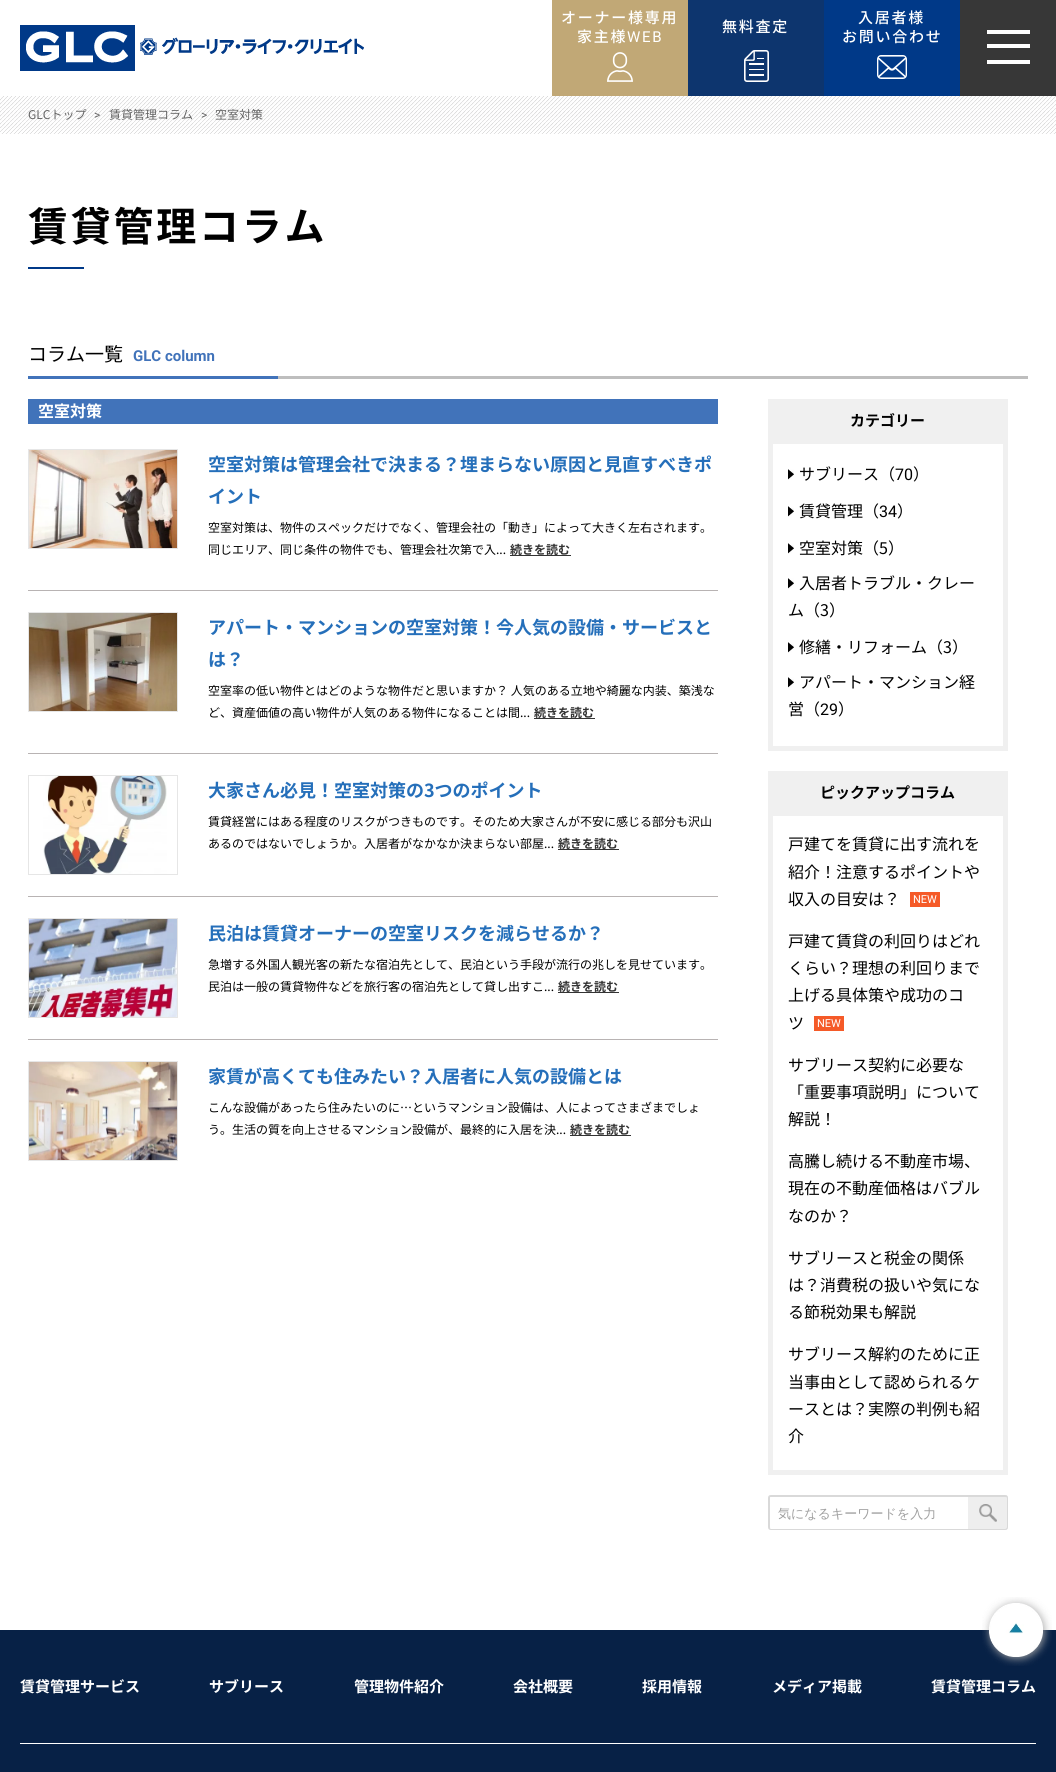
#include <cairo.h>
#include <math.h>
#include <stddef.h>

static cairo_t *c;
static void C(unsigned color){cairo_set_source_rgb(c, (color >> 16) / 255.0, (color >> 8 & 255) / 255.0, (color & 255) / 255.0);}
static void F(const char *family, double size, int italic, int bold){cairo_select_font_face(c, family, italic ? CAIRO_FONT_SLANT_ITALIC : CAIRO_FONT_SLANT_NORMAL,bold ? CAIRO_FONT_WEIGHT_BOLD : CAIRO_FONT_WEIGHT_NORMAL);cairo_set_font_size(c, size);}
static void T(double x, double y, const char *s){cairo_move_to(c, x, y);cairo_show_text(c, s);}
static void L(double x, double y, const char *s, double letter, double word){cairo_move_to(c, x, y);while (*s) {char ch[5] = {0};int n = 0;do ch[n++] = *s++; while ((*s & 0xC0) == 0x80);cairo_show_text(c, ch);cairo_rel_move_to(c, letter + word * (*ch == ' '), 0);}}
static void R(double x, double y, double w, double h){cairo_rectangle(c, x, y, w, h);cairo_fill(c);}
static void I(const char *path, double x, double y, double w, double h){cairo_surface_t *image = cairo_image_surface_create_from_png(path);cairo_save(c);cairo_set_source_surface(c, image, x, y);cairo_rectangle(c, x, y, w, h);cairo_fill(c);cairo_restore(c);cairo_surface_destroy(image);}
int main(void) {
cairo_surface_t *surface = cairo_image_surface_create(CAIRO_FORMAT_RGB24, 1056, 1772);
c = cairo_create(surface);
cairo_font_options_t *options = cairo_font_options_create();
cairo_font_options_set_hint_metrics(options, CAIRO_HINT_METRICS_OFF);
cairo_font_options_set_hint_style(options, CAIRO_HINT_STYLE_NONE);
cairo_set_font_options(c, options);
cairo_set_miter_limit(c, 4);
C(0xffffff);
cairo_paint(c);
I("1.png",20,25,344,46);
C(0xc1a876);
R(552,0,136,96);
F("Noto Sans JP Medium",15,0,0);
C(0xffffff);
L(561,23,"オーナー様専用",1.75,0);
L(577,42,"家主様",1.75,0);
F("Roboto",15,0,0);
L(627,42,"WEB",1.75,0);
I("2.png",607,52,26,30);
C(0x0d356e);
R(688,0,136,96);
F("Noto Sans JP Medium",15,0,0);
C(0xffffff);
L(722,32,"無料査定",1.75,0);
I("3.png",744,50,25,32);
C(0x003988);
R(824,0,136,96);
C(0xffffff);
L(858,23,"入居者様",1.75,0);
L(842,42,"お問い合わせ",1.75,0);
I("4.png",877,55,30,24);
C(0x373737);
R(960,0,96,96);
C(0xffffff);
R(987,30,43,4);
R(987,44,43,4);
R(987,60,43,4);
I("5.png",0,96,1056,38);
F("Noto Sans JP",12,0,0);
C(0x666666);
T(28,119,"GLCトップ");
F("Roboto",12,0,0);
T(94,119,">");
F("Noto Sans JP",12,0,0);
T(109,119,"賃貸管理コラム");
F("Roboto",12,0,0);
T(201,119,">");
F("Noto Sans JP",12,0,0);
T(215,119,"空室対策");
F("Noto Sans JP",40,0,1);
C(0x000000);
L(28,241,"賃貸管理コラム",2.75,0);
C(0x003988);
R(28,267,56,2);
C(0xbebebe);
R(278,376,750,3);
F("Noto Sans JP",19,0,0);
C(0x000000);
T(28,361,"コラム一覧");
F("Roboto",15,0,1);
C(0x4173ba);
T(133,361,"GLC column");
R(28,376,250,3);
R(28,399,690,25);
F("Noto Sans JP",16,0,1);
C(0xffffff);
T(38,417,"空室対策");
C(0xb8b3b3);
R(28,590,690,1);
cairo_rectangle(c,28.5,449.5,149,99);
C(0xe6e6e6);
cairo_set_line_width(c,1);
cairo_stroke(c);
I("6.png",29,450,148,98);
F("Noto Sans JP",18,0,1);
C(0x256fba);
T(208,471,"空室対策は管理会社で決まる？埋まらない原因と見直すべきポ");
T(208,503,"イント");
F("Noto Sans JP",12,0,0);
C(0x000000);
T(208,532,"空室対策は、物件のスペックだけでなく、管理会社の「動き」によって大きく左右されます。");
T(208,554,"同じエリア、同じ条件の物件でも、管理会社次第で入...");
C(0x333333);
R(510,555,61,1);
F("Noto Sans JP",12,0,1);
T(510,554,"続きを読む");
C(0xb8b3b3);
R(28,753,690,1);
cairo_rectangle(c,28.5,612.5,149,99);
C(0xe6e6e6);
cairo_stroke(c);
I("7.png",29,613,148,98);
F("Noto Sans JP",18,0,1);
C(0x256fba);
T(208,634,"アパート・マンションの空室対策！今人気の設備・サービスと");
T(208,666,"は？");
F("Noto Sans JP",12,0,0);
C(0x000000);
T(208,695,"空室率の低い物件とはどのような物件だと思いますか？ 人気のある立地や綺麗な内装、築浅な");
T(208,717,"ど、資産価値の高い物件が人気のある物件になることは間...");
C(0x333333);
R(534,718,61,1);
F("Noto Sans JP",12,0,1);
T(534,717,"続きを読む");
C(0xb8b3b3);
R(28,896,690,1);
cairo_rectangle(c,28.5,775.5,149,99);
C(0xe6e6e6);
cairo_stroke(c);
I("8.png",43,776,124,98);
F("Noto Sans JP",18,0,1);
C(0x256fba);
T(208,797,"大家さん必見！空室対策の3つのポイント");
F("Noto Sans JP",12,0,0);
C(0x000000);
T(208,826,"賃貸経営にはある程度のリスクがつきものです。そのため大家さんが不安に感じる部分も沢山");
T(208,848,"あるのではないでしょうか。入居者がなかなか決まらない部屋...");
C(0x333333);
R(558,849,61,1);
F("Noto Sans JP",12,0,1);
T(558,848,"続きを読む");
C(0xb8b3b3);
R(28,1039,690,1);
cairo_rectangle(c,28.5,918.5,149,99);
C(0xe6e6e6);
cairo_stroke(c);
I("9.png",29,919,148,98);
F("Noto Sans JP",18,0,1);
C(0x256fba);
T(208,940,"民泊は賃貸オーナーの空室リスクを減らせるか？");
F("Noto Sans JP",12,0,0);
C(0x000000);
T(208,969,"急増する外国人観光客の新たな宿泊先として、民泊という手段が流行の兆しを見せています。");
T(208,991,"民泊は一般の賃貸物件などを旅行客の宿泊先として貸し出すこ...");
C(0x333333);
R(558,992,61,1);
F("Noto Sans JP",12,0,1);
T(558,991,"続きを読む");
cairo_rectangle(c,28.5,1061.5,149,99);
C(0xe6e6e6);
cairo_stroke(c);
I("10.png",29,1062,148,98);
F("Noto Sans JP",18,0,1);
C(0x256fba);
T(208,1083,"家賃が高くても住みたい？入居者に人気の設備とは");
F("Noto Sans JP",12,0,0);
C(0x000000);
T(208,1112,"こんな設備があったら住みたいのに…というマンション設備は、人によってさまざまでしょ");
T(208,1134,"う。生活の質を向上させるマンション設備が、最終的に入居を決...");
C(0x333333);
R(570,1135,61,1);
F("Noto Sans JP",12,0,1);
T(570,1134,"続きを読む");
C(0xf0f0f0);
R(768,399,240,45);
F("Noto Sans JP",15,0,1);
C(0x000000);
T(850,426,"カテゴリー");
C(0xf0f0f0);
R(1003,444,5,307);
R(768,746,240,5);
R(768,444,5,307);
I("11.png",788,469,6,11);
F("Noto Sans JP",16,0,0);
C(0x000000);
T(799,480,"サブリース（");
F("Roboto",16,0,0);
T(895,480,"70");
F("Noto Sans JP",16,0,0);
T(913,480,"）");
I("11.png",788,506,6,11);
T(799,517,"賃貸管理（");
F("Roboto",16,0,0);
T(879,517,"34");
F("Noto Sans JP",16,0,0);
T(897,517,"）");
I("11.png",788,543,6,11);
T(799,554,"空室対策（5）");
I("11.png",788,578,6,11);
T(799,589,"入居者トラブル・クレー");
T(788,616,"ム（3）");
I("11.png",788,642,6,11);
T(799,653,"修繕・リフォーム（3）");
I("11.png",788,677,6,11);
T(799,688,"アパート・マンション経");
T(788,715,"営（");
F("Roboto",16,0,0);
T(820,715,"29");
F("Noto Sans JP",16,0,0);
T(838,715,"）");
C(0xf0f0f0);
R(768,771,240,45);
F("Noto Sans JP",15,0,1);
C(0x000000);
T(820,798,"ピックアップコラム");
C(0xf0f0f0);
R(1003,816,5,659);
R(768,1470,240,5);
R(768,816,5,659);
F("Noto Sans JP",16,0,0);
C(0x000000);
T(788,850,"戸建てを賃貸に出す流れを");
T(788,878,"紹介！注意するポイントや");
T(788,905,"収入の目安は？");
C(0xf55a28);
R(910,892,30,15);
F("Roboto",11,0,0);
C(0xffffff);
T(913,903,"NEW");
F("Noto Sans JP",16,0,0);
C(0x000000);
T(788,947,"戸建て賃貸の利回りはどれ");
T(788,974,"くらい？理想の利回りまで");
T(788,1001,"上げる具体策や成功のコ");
T(788,1029,"ツ");
C(0xf55a28);
R(814,1016,30,15);
F("Roboto",11,0,0);
C(0xffffff);
T(817,1027,"NEW");
F("Noto Sans JP",16,0,0);
C(0x000000);
T(788,1071,"サブリース契約に必要な");
T(788,1098,"「重要事項説明」について");
T(788,1125,"解説！");
T(788,1167,"高騰し続ける不動産市場、");
T(788,1194,"現在の不動産価格はバブル");
T(788,1222,"なのか？");
T(788,1264,"サブリースと税金の関係");
T(788,1291,"は？消費税の扱いや気にな");
T(788,1318,"る節税効果も解説");
T(788,1360,"サブリース解約のために正");
T(788,1388,"当事由として認められるケ");
T(788,1415,"ースとは？実際の判例も紹");
T(788,1442,"介");
C(0xd9d9d9);
cairo_set_fill_rule(c,CAIRO_FILL_RULE_EVEN_ODD);
cairo_new_path(c);
cairo_move_to(c,771,1495);
cairo_line_to(c,968,1495);
cairo_line_to(c,968,1530);
cairo_line_to(c,771,1530);
cairo_curve_to(c,769,1530,768,1529,768,1527);
cairo_line_to(c,768,1498);
cairo_curve_to(c,768,1496,769,1495,771,1495);
cairo_close_path(c);
cairo_move_to(c,771,1497);
cairo_line_to(c,968,1497);
cairo_line_to(c,968,1529);
cairo_line_to(c,771,1529);
cairo_curve_to(c,770,1529,770,1528,770,1527);
cairo_line_to(c,770,1498);
cairo_curve_to(c,770,1497,770,1497,771,1497);
cairo_close_path(c);
cairo_fill(c);
F("WenQuanYi Zen Hei Medium",13,0,0);
C(0xa0a0a0);
T(778,1518,"気になるキーワードを入力");
C(0xeeeeee);
cairo_new_path(c);
cairo_move_to(c,968,1495);
cairo_line_to(c,1005,1495);
cairo_curve_to(c,1006.5,1495,1008,1496.5,1008,1498);
cairo_line_to(c,1008,1527);
cairo_curve_to(c,1008,1528.5,1006.5,1530,1005,1530);
cairo_line_to(c,968,1530);
cairo_close_path(c);
cairo_fill(c);
I("12.png",979,1504,18,18);
C(0xd9d9d9);
cairo_new_path(c);
cairo_move_to(c,968,1495);
cairo_line_to(c,1005,1495);
cairo_curve_to(c,1007,1495,1008,1496,1008,1498);
cairo_line_to(c,1008,1527);
cairo_curve_to(c,1008,1529,1007,1530,1005,1530);
cairo_line_to(c,968,1530);
cairo_close_path(c);
cairo_move_to(c,968,1497);
cairo_line_to(c,1005,1497);
cairo_curve_to(c,1006,1497,1007,1497,1007,1498);
cairo_line_to(c,1007,1527);
cairo_curve_to(c,1007,1528,1006,1529,1005,1529);
cairo_line_to(c,968,1529);
cairo_close_path(c);
cairo_fill(c);
C(0x072146);
R(0,1630,1056,142);
I("13.png",982,1597,70,69);
F("Noto Sans JP",15,0,1);
C(0xffffff);
T(20,1692,"賃貸管理サービス");
T(209,1692,"サブリース");
T(354,1692,"管理物件紹介");
T(513,1692,"会社概要");
T(642,1692,"採用情報");
T(772,1692,"メディア掲載");
T(931,1692,"賃貸管理コラム");
R(20,1743,1016,1);
cairo_surface_write_to_png(surface, "o.png");
cairo_font_options_destroy(options);
cairo_destroy(c);
cairo_surface_destroy(surface);
return 0;
}
